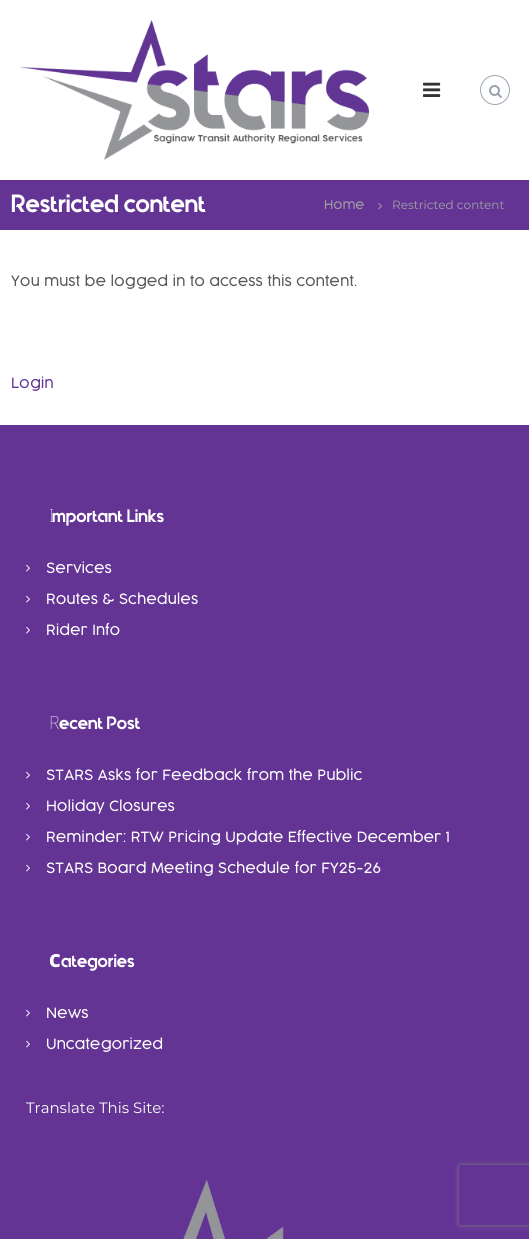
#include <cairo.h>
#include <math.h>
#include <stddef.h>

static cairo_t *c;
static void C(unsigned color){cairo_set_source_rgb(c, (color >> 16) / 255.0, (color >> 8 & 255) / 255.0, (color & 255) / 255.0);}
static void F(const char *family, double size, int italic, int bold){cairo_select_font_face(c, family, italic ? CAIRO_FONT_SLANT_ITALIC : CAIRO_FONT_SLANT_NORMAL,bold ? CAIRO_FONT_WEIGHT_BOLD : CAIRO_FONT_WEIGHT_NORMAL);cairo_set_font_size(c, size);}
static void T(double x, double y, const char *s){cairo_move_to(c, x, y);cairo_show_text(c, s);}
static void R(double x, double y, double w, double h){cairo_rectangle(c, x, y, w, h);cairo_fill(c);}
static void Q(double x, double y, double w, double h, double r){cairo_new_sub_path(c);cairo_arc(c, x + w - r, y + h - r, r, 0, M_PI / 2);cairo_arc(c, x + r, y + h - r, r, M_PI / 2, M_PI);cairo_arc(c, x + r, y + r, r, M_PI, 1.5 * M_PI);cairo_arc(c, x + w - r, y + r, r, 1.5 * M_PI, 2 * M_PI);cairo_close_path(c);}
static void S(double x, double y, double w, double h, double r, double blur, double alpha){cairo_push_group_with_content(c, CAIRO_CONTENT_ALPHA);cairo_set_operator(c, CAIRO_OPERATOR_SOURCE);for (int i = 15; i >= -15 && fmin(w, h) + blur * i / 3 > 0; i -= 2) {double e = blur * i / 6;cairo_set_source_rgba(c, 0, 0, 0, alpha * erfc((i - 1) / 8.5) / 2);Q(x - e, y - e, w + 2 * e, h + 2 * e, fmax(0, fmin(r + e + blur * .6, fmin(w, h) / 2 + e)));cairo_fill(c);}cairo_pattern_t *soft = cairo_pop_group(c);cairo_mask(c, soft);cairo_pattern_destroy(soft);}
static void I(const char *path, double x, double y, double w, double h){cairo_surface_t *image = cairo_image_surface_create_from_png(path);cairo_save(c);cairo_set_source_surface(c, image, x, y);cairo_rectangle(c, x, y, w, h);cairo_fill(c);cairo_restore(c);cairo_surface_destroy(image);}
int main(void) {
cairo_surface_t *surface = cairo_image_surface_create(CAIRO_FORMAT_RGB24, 529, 1239);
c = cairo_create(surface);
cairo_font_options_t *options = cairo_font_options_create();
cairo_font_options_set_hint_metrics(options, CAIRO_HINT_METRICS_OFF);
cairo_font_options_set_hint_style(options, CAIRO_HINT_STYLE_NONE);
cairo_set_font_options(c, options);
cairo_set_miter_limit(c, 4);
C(0xffffff);
cairo_paint(c);
I("1.png",19,20,350,140);
I("2.png",423,82,18,15);
cairo_arc(c,495,90,14.5,0,2 * M_PI);
C(0x9ca6b2);
cairo_set_line_width(c,1);
cairo_stroke(c);
I("3.png",489,85,13,13);
C(0x633494);
R(0,180,529,50);
F("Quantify",25,0,1);
C(0xffffff);
T(11,212,"Restricted content");
F("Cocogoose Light",12,0,0);
C(0xa1a1a1);
T(324,209,"Home");
I("4.png",378,202,4,8);
F("Montserrat",12,0,0);
T(392,209,"Restricted content");
F("Cocogoose Light",14,0,0);
C(0x58595b);
T(11,286,"You must be logged in to access this content.");
C(0x633494);
T(11,388,"Login");
R(0,425,529,814);
F("Noto Sans Thin",18,0,0);
C(0xffffff);
T(49,522,"I");
F("Quantify",18,0,1);
T(52,522,"mportant Links");
I("5.png",26,564,4,8);
F("Cocogoose Light",14,0,0);
T(46,573,"Services");
I("5.png",26,595,4,8);
T(46,604,"Routes & Schedules");
I("5.png",26,626,4,8);
T(46,635,"Rider Info");
F("Noto Sans Thin",18,0,0);
T(49,729,"R");
F("Quantify",18,0,1);
T(59,729,"ecent Post");
I("5.png",26,771,4,8);
F("Cocogoose Light",14,0,0);
T(46,780,"STARS Asks for Feedback from the Public");
I("5.png",26,802,4,8);
T(46,811,"Holiday Closures");
I("5.png",26,833,4,8);
T(46,842,"Reminder: RTW Pricing Update Effective December 1");
I("5.png",26,864,4,8);
T(46,873,"STARS Board Meeting Schedule for FY25-26");
F("Noto Sans Black",18,0,0);
T(49,967,"C");
F("Quantify",18,0,1);
T(61,967,"ategories");
I("5.png",26,1009,4,8);
F("Cocogoose Light",14,0,0);
T(46,1018,"News");
I("5.png",26,1040,4,8);
T(46,1049,"Uncategorized");
F("Montserrat",15,0,0);
T(26,1113,"Translate This Site:");
I("6.png",183,1180,101,59);
cairo_save(c);
cairo_set_fill_rule(c,CAIRO_FILL_RULE_EVEN_ODD);
cairo_new_path(c);
cairo_move_to(c,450,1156);
cairo_line_to(c,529,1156);
cairo_line_to(c,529,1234);
cairo_line_to(c,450,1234);
cairo_close_path(c);
cairo_move_to(c,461,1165);
cairo_line_to(c,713,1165);
cairo_curve_to(c,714,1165,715,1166,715,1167);
cairo_line_to(c,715,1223);
cairo_curve_to(c,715,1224,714,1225,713,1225);
cairo_line_to(c,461,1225);
cairo_curve_to(c,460,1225,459,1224,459,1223);
cairo_line_to(c,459,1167);
cairo_curve_to(c,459,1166,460,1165,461,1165);
cairo_close_path(c);
cairo_clip(c);
C(0x808080);
S(459,1165,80,60,2,2.5,1);
cairo_restore(c);
cairo_surface_write_to_png(surface, "o.png");
cairo_font_options_destroy(options);
cairo_destroy(c);
cairo_surface_destroy(surface);
return 0;
}
